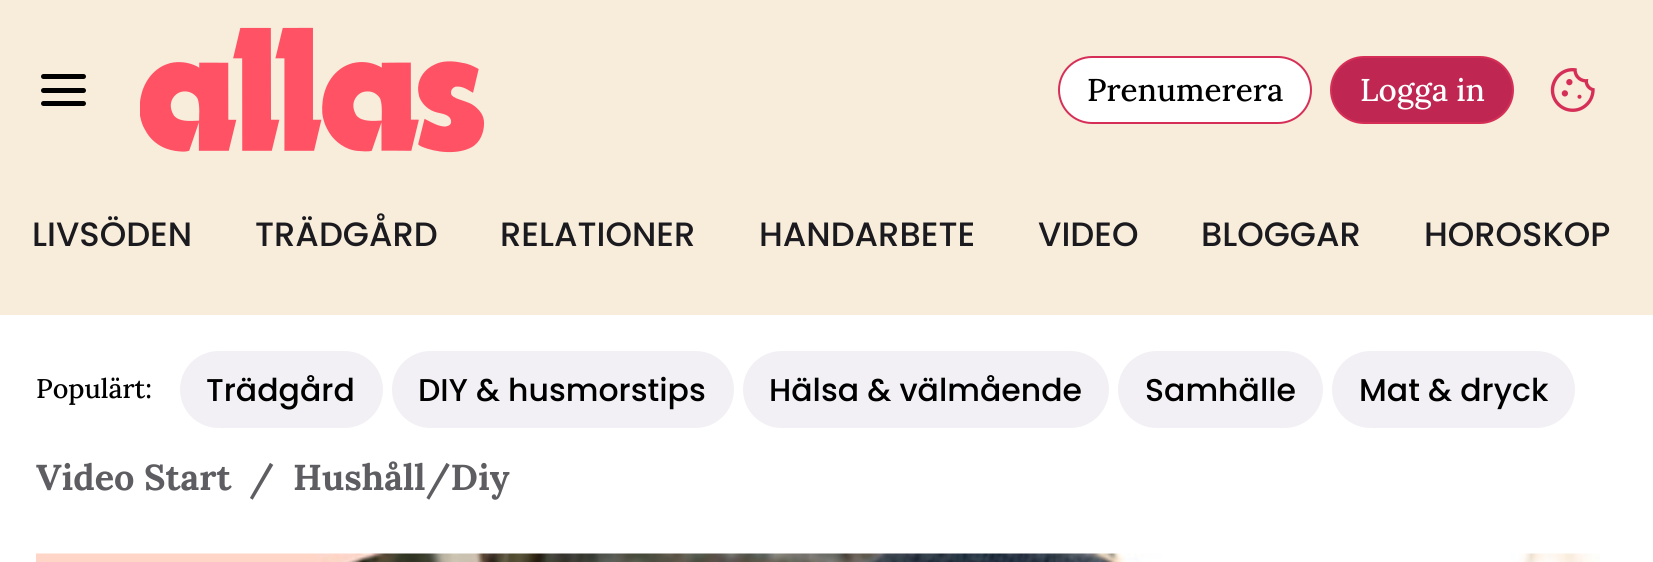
#include <cairo.h>
#include <math.h>
#include <stddef.h>

static cairo_t *c;
static void C(unsigned color){cairo_set_source_rgb(c, (color >> 16) / 255.0, (color >> 8 & 255) / 255.0, (color & 255) / 255.0);}
static void F(const char *family, double size, int italic, int bold){cairo_select_font_face(c, family, italic ? CAIRO_FONT_SLANT_ITALIC : CAIRO_FONT_SLANT_NORMAL,bold ? CAIRO_FONT_WEIGHT_BOLD : CAIRO_FONT_WEIGHT_NORMAL);cairo_set_font_size(c, size);}
static void T(double x, double y, const char *s){cairo_move_to(c, x, y);cairo_show_text(c, s);}
static void R(double x, double y, double w, double h){cairo_rectangle(c, x, y, w, h);cairo_fill(c);}
static void Q(double x, double y, double w, double h, double r){cairo_new_sub_path(c);cairo_arc(c, x + w - r, y + h - r, r, 0, M_PI / 2);cairo_arc(c, x + r, y + h - r, r, M_PI / 2, M_PI);cairo_arc(c, x + r, y + r, r, M_PI, 1.5 * M_PI);cairo_arc(c, x + w - r, y + r, r, 1.5 * M_PI, 2 * M_PI);cairo_close_path(c);}
static void I(const char *path, double x, double y, double w, double h){cairo_surface_t *image = cairo_image_surface_create_from_png(path);cairo_save(c);cairo_set_source_surface(c, image, x, y);cairo_rectangle(c, x, y, w, h);cairo_fill(c);cairo_restore(c);cairo_surface_destroy(image);}
int main(void) {
cairo_surface_t *surface = cairo_image_surface_create(CAIRO_FORMAT_RGB24, 1653, 562);
c = cairo_create(surface);
cairo_font_options_t *options = cairo_font_options_create();
cairo_font_options_set_hint_metrics(options, CAIRO_HINT_METRICS_OFF);
cairo_font_options_set_hint_style(options, CAIRO_HINT_STYLE_NONE);
cairo_set_font_options(c, options);
cairo_set_miter_limit(c, 4);
C(0xffffff);
cairo_paint(c);
C(0xf8ecdb);
R(0,0,1653,315);
C(0x000000);
Q(41,74,45,5,2.5);
cairo_fill(c);
Q(41,88,45,5,2.5);
cairo_fill(c);
Q(41,101,45,5,2.5);
cairo_fill(c);
I("1.png",140,27,345,126);
C(0xffffff);
Q(1059,57,252,66,33);
cairo_fill_preserve(c);
C(0xd62f57);
cairo_stroke(c);
F("Lora Medium",31.5,0,0);
C(0x000000);
T(1087,101,"Prenumerera");
C(0xbf2752);
Q(1331,57,182,66,33);
cairo_fill_preserve(c);
C(0xd62f57);
cairo_stroke(c);
C(0xffffff);
T(1360,101,"Logga in");
I("2.png",1550,68,45,44);
F("Poppins Medium",33.75,0,0);
C(0x1b1b1f);
T(32,246,"LIVSÖDEN");
T(255,246,"TRÄDGÅRD");
T(500,246,"RELATIONER");
T(759,246,"HANDARBETE");
T(1038,246,"VIDEO");
T(1201,246,"BLOGGAR");
T(1424,246,"HOROSKOP");
F("Lora Medium",27,0,0);
C(0x000000);
T(36,398,"Populärt:");
C(0xf2f0f4);
Q(180,351,203,77,38.5);
cairo_fill(c);
F("Poppins Medium",31.5,0,0);
C(0x000000);
T(206,401,"Trädgård");
C(0xf2f0f4);
Q(392,351,342,77,38.5);
cairo_fill(c);
C(0x000000);
T(418,401,"DIY & husmorstips");
C(0xf2f0f4);
Q(743,351,366,77,38.5);
cairo_fill(c);
C(0x000000);
T(769,401,"Hälsa & välmående");
C(0xf2f0f4);
Q(1118,351,205,77,38.5);
cairo_fill(c);
C(0x000000);
T(1145,401,"Samhälle");
C(0xf2f0f4);
Q(1332,351,243,77,38.5);
cairo_fill(c);
C(0x000000);
T(1359,401,"Mat & dryck");
F("Lora",36,0,1);
C(0x5e5e62);
T(36,490,"Video Start");
T(249,490,"/");
T(293,490,"Hushåll/Diy");
I("3.png",36,553,1564,9);
cairo_surface_write_to_png(surface, "o.png");
cairo_font_options_destroy(options);
cairo_destroy(c);
cairo_surface_destroy(surface);
return 0;
}
